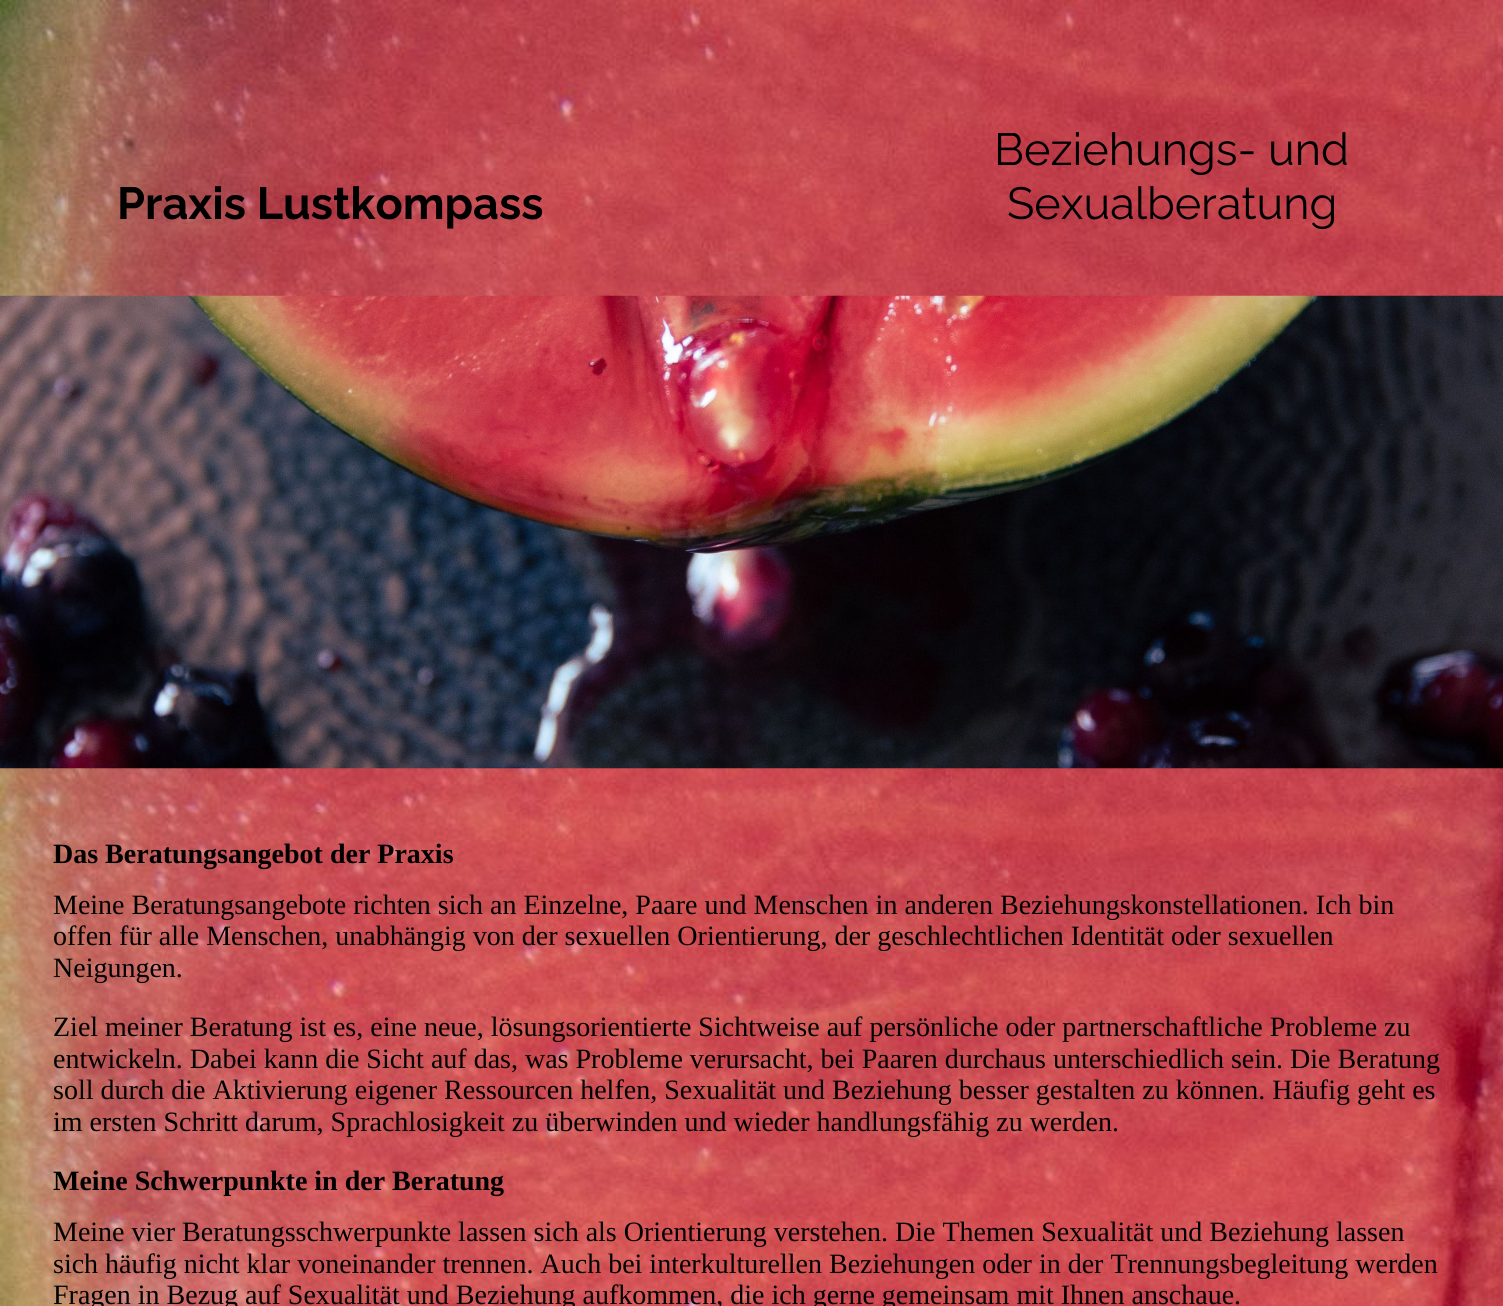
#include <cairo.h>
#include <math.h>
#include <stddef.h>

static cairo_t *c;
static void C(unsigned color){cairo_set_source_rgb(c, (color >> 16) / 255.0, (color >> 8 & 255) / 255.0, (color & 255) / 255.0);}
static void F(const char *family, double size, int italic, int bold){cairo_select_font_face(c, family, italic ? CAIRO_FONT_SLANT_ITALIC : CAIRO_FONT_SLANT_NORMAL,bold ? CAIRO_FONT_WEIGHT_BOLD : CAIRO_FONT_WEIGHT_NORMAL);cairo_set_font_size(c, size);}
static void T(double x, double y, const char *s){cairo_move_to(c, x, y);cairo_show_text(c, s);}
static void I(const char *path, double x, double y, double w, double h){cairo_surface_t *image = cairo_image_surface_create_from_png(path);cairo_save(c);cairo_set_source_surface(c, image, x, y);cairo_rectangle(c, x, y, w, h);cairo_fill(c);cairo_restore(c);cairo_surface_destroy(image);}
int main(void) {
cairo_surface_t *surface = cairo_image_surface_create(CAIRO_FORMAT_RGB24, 1503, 1306);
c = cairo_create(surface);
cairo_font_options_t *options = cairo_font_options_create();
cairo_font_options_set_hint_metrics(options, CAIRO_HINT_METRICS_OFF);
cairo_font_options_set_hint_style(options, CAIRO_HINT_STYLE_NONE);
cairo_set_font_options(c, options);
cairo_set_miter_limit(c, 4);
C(0xffffff);
cairo_paint(c);
I("1.png",0,0,1503,1306);
F("Raleway",45,0,1);
C(0x000000);
T(117,219,"Praxis Lustkompass");
F("Raleway",45,0,0);
T(994,165,"Beziehungs- und");
T(1007,219,"Sexualberatung");
I("2.png",0,295,1503,474);
F("Liberation Serif",28,0,1);
T(53,863,"Das Beratungsangebot der Praxis");
F("Liberation Serif",28,0,0);
T(53,914,"Meine Beratungsangebote richten sich an Einzelne, Paare und Menschen in anderen Beziehungskonstellationen. Ich bin");
T(53,945,"offen für alle Menschen, unabhängig von der sexuellen Orientierung, der geschlechtlichen Identität oder sexuellen");
T(53,977,"Neigungen.");
T(53,1036,"Ziel meiner Beratung ist es, eine neue, lösungsorientierte Sichtweise auf persönliche oder partnerschaftliche Probleme zu");
T(53,1068,"entwickeln. Dabei kann die Sicht auf das, was Probleme verursacht, bei Paaren durchaus unterschiedlich sein. Die Beratung");
T(53,1099,"soll durch die Aktivierung eigener Ressourcen helfen, Sexualität und Beziehung besser gestalten zu können. Häufig geht es");
T(53,1131,"im ersten Schritt darum, Sprachlosigkeit zu überwinden und wieder handlungsfähig zu werden.");
F("Liberation Serif",28,0,1);
T(53,1190,"Meine Schwerpunkte in der Beratung");
F("Liberation Serif",28,0,0);
T(53,1241,"Meine vier Beratungsschwerpunkte lassen sich als Orientierung verstehen. Die Themen Sexualität und Beziehung lassen");
T(53,1273,"sich häufig nicht klar voneinander trennen. Auch bei interkulturellen Beziehungen oder in der Trennungsbegleitung werden");
T(53,1304,"Fragen in Bezug auf Sexualität und Beziehung aufkommen, die ich gerne gemeinsam mit Ihnen anschaue.");
cairo_surface_write_to_png(surface, "o.png");
cairo_font_options_destroy(options);
cairo_destroy(c);
cairo_surface_destroy(surface);
return 0;
}
